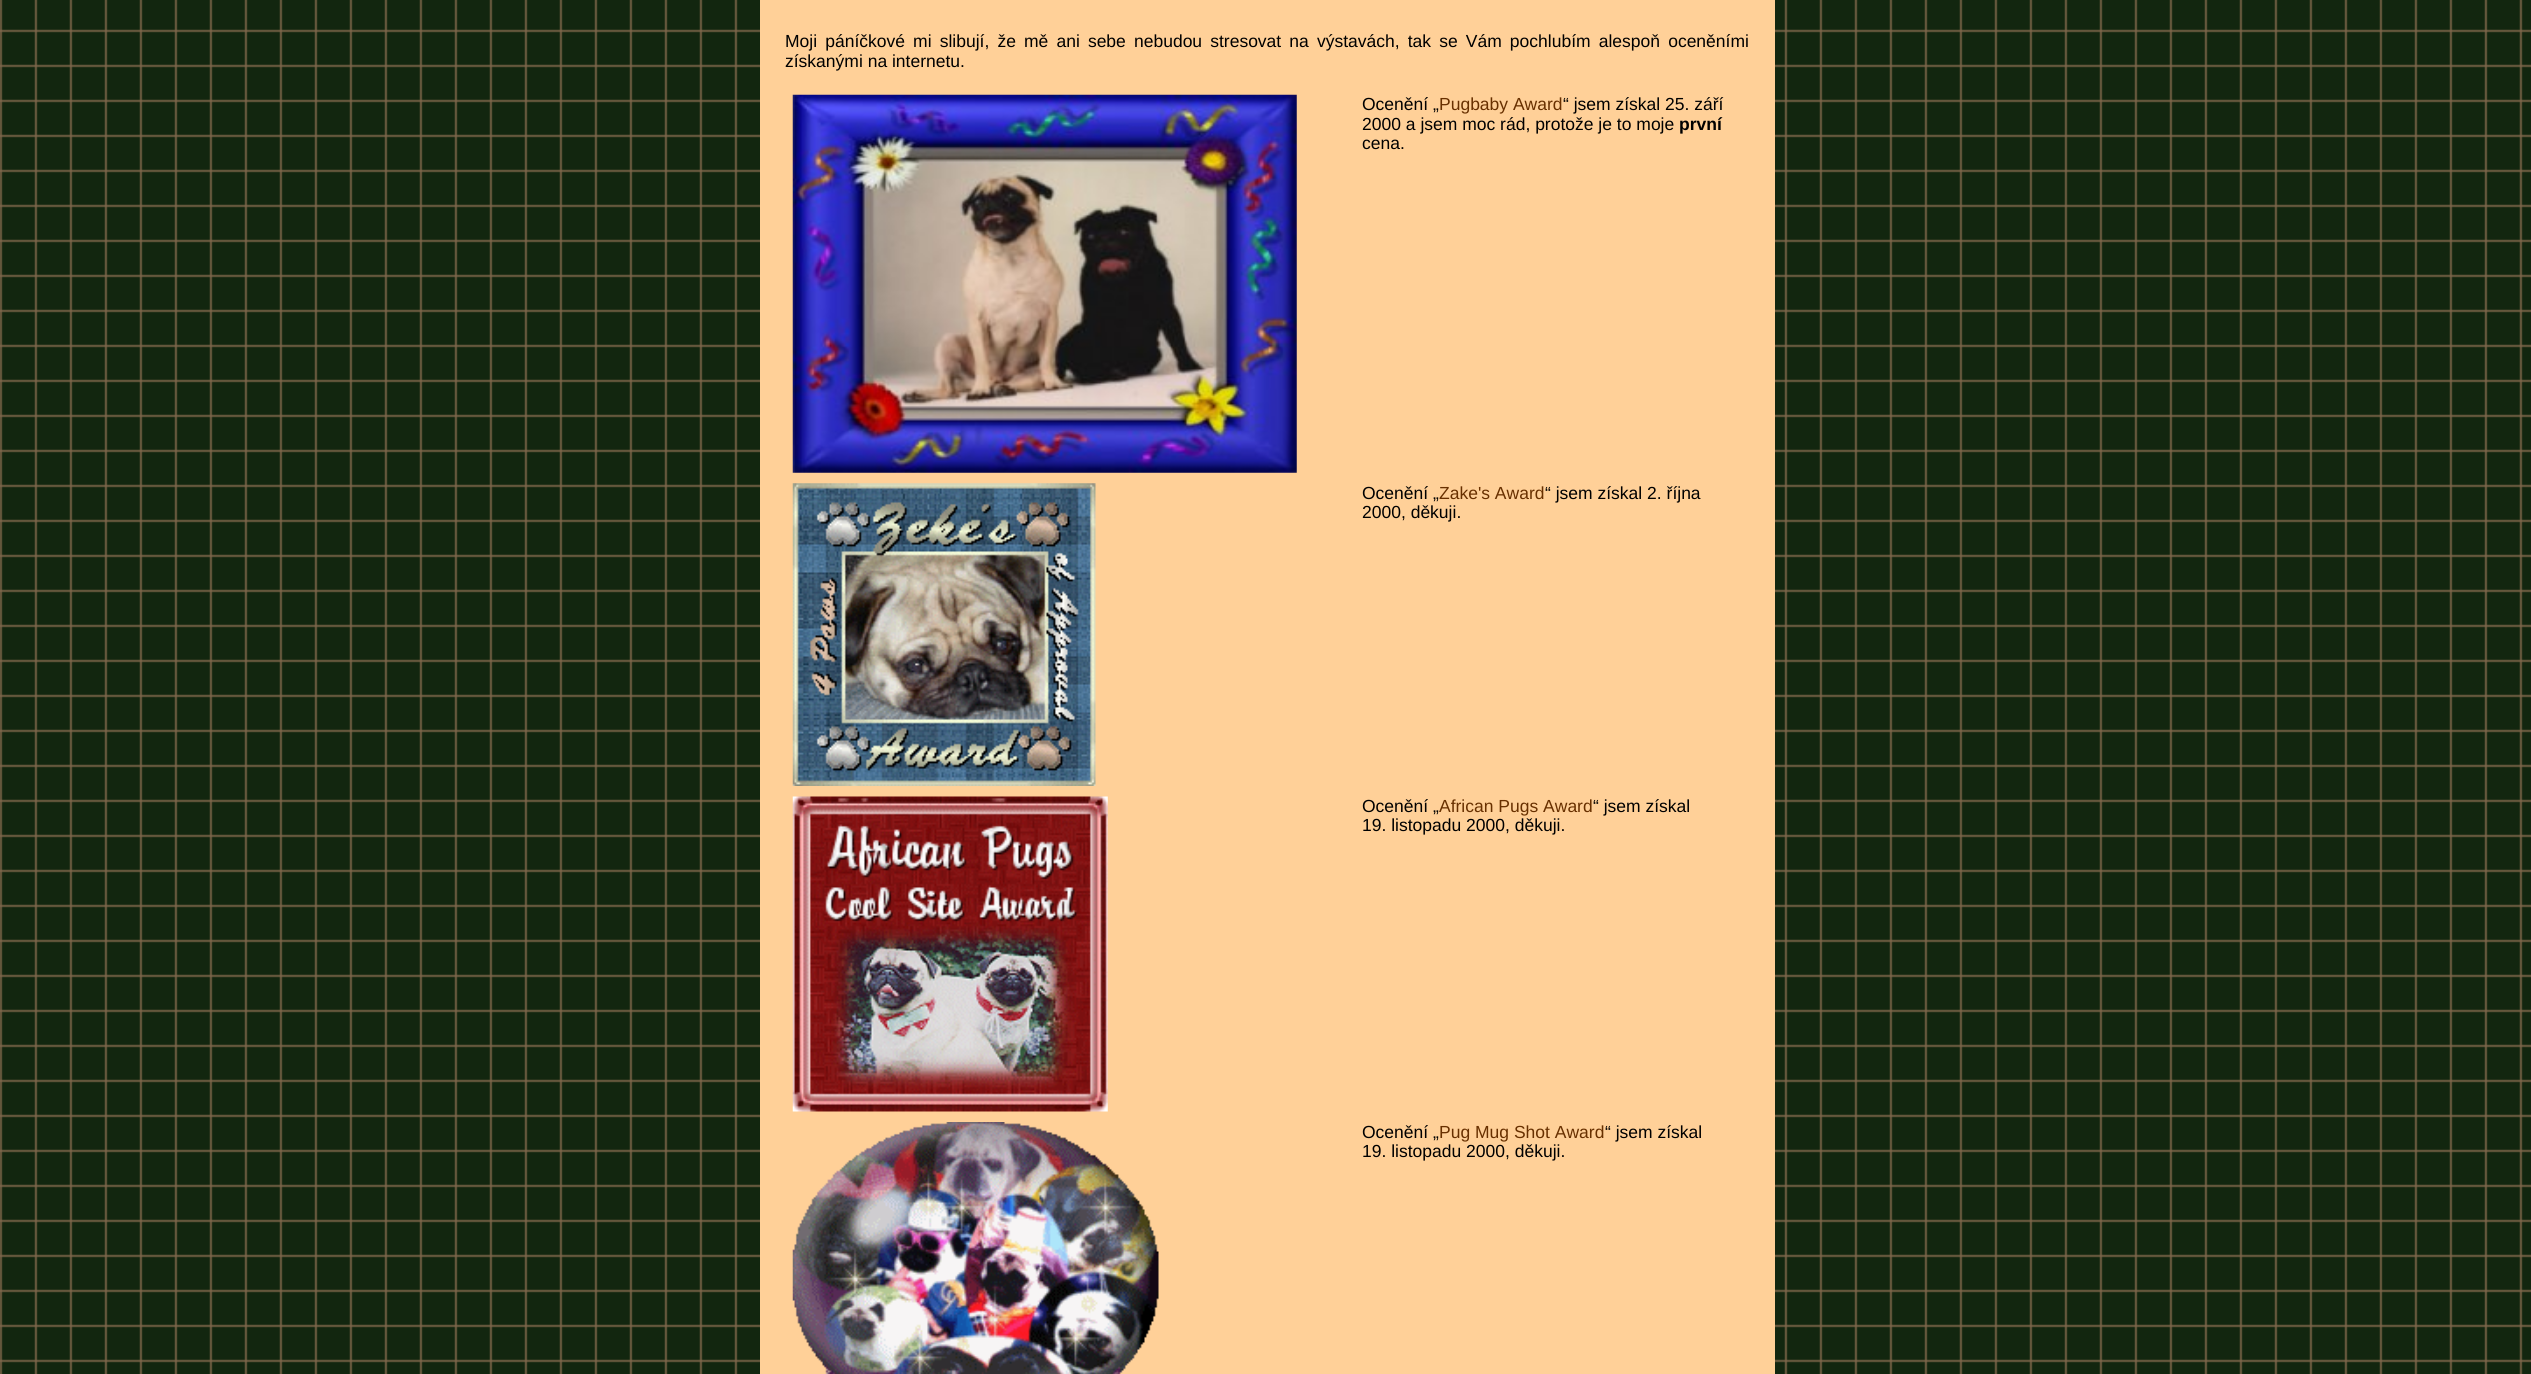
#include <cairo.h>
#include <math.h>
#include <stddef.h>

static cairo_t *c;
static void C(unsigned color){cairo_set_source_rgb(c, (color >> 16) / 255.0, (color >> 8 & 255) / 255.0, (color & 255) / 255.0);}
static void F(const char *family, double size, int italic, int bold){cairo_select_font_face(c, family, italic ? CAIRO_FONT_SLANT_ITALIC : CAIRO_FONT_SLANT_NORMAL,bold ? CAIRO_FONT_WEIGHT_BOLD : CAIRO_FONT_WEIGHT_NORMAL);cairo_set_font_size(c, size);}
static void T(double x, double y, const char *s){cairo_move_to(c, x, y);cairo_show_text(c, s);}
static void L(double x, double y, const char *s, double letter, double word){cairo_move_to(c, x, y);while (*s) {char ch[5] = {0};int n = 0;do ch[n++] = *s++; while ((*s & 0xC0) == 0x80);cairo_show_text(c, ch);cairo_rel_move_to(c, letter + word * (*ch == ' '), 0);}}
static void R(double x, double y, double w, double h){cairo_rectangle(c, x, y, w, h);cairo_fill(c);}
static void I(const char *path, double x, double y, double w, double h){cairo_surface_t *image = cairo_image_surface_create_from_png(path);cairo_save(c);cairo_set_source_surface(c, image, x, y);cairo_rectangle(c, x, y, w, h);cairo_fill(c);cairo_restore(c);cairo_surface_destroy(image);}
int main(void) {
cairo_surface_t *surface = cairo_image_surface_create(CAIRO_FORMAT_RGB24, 2531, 1374);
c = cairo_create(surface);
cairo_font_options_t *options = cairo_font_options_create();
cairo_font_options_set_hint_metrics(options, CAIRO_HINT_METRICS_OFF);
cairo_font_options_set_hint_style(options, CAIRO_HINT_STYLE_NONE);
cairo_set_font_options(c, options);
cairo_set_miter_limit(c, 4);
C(0xffffff);
cairo_paint(c);
I("1.png",0,0,2531,1374);
C(0xffd098);
R(760,0,1015,1374);
F("Liberation Sans",17.5,0,0);
C(0x000000);
L(785,47,"Moji páníčkové mi slibují, že mě ani sebe nebudou stresovat na výstavách, tak se Vám pochlubím alespoň oceněními",0,3.25);
T(785,67,"získanými na internetu.");
I("2.png",792,94,505,379);
T(1362,110,"Ocenění „");
C(0x683000);
T(1439,110,"Pugbaby Award");
C(0x000000);
T(1563,110,"“ jsem získal 25. září");
T(1362,130,"2000 a jsem moc rád, protože je to moje");
F("Liberation Sans",17.5,0,1);
T(1679,130,"první");
F("Liberation Sans",17.5,0,0);
T(1362,149,"cena.");
I("3.png",792,483,304,303);
T(1362,499,"Ocenění „");
C(0x683000);
T(1439,499,"Zake's Award");
C(0x000000);
T(1545,499,"“ jsem získal 2. října");
T(1362,518,"2000, děkuji.");
I("4.png",792,796,316,316);
T(1362,812,"Ocenění „");
C(0x683000);
T(1439,812,"African Pugs Award");
C(0x000000);
T(1593,812,"“ jsem získal");
T(1362,831,"19. listopadu 2000, děkuji.");
I("5.png",792,1122,367,252);
T(1362,1138,"Ocenění „");
C(0x683000);
T(1439,1138,"Pug Mug Shot Award");
C(0x000000);
T(1605,1138,"“ jsem získal");
T(1362,1157,"19. listopadu 2000, děkuji.");
cairo_surface_write_to_png(surface, "o.png");
cairo_font_options_destroy(options);
cairo_destroy(c);
cairo_surface_destroy(surface);
return 0;
}
